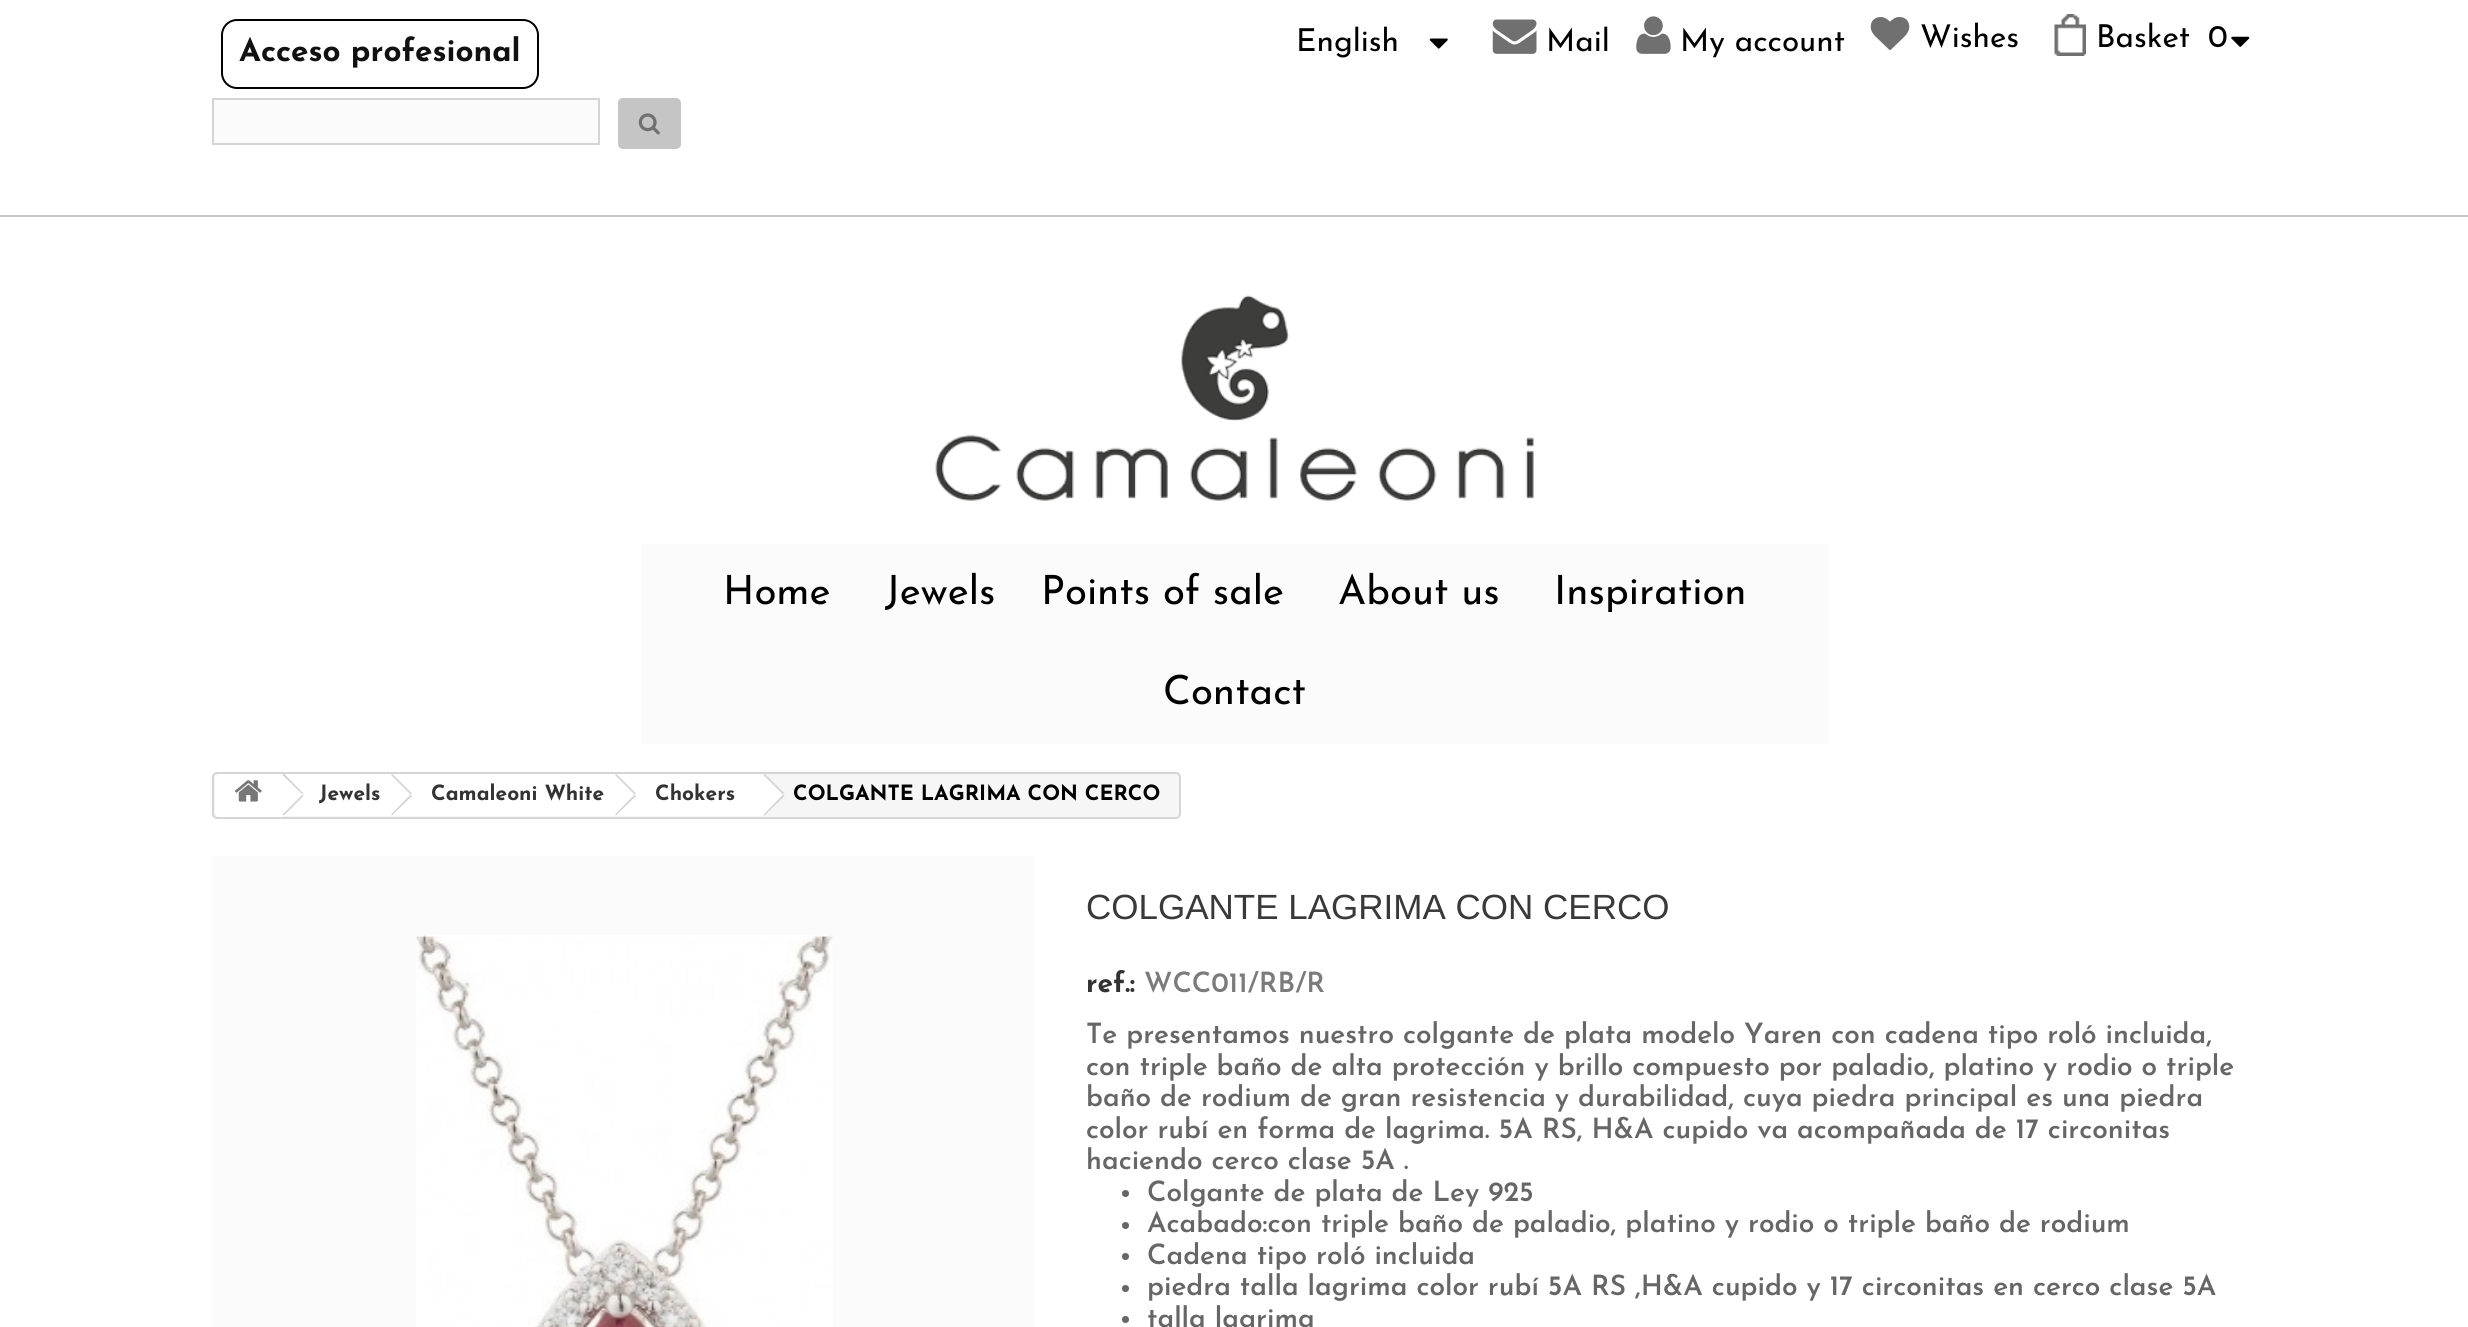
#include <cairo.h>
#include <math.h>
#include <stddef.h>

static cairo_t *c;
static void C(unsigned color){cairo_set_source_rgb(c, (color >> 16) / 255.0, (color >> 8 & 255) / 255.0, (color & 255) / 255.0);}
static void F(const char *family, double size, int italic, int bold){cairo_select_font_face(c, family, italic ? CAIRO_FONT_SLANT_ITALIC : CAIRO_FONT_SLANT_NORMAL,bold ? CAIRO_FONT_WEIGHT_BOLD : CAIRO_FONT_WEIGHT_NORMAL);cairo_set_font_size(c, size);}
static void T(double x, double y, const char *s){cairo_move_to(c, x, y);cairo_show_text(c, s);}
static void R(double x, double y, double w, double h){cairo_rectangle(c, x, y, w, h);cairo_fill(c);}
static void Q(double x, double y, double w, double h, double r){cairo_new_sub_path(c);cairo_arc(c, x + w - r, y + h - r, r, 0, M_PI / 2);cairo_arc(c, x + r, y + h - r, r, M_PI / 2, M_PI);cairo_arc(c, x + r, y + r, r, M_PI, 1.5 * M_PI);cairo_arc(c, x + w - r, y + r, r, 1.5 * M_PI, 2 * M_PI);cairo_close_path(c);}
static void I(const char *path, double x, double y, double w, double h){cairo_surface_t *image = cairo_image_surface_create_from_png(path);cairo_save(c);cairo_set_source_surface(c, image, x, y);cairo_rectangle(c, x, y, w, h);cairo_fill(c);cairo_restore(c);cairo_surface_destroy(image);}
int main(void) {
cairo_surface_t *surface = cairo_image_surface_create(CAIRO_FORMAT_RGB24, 2468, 1327);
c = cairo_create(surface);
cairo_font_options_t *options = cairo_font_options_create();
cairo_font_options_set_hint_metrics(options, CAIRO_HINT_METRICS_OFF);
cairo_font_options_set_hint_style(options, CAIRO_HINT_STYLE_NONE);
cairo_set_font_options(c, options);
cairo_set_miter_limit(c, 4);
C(0xffffff);
cairo_paint(c);
C(0xc5c5c5);
R(0,215,2468,2);
Q(222,20,316,68,15);
C(0x000000);
cairo_stroke(c);
F("Josefin Sans",31.5,0,1);
C(0x111111);
T(239,61,"Acceso profesional");
F("Josefin Sans",31.5,0,0);
C(0x000000);
T(1296,51,"English");
I("1.png",1429,38,19,11);
I("2.png",1492,19,45,35);
T(1546,51,"Mail");
I("3.png",1636,16,35,38);
T(1680,51,"My account");
I("4.png",1870,17,40,33);
T(1920,47,"Wishes");
I("5.png",2054,14,32,42);
T(2096,47,"Basket");
T(2208,47,"0");
I("6.png",2231,36,19,11);
C(0xfbfbfb);
cairo_rectangle(c,213,99,386,45);
cairo_fill_preserve(c);
C(0xd6d4d4);
cairo_stroke(c);
C(0xc5c5c5);
Q(618,98,63,51,5);
cairo_fill(c);
I("7.png",638,113,22,22);
I("8.png",935,295,599,206);
C(0xfbfbfb);
R(642,544,1187,200);
F("Josefin Sans",40.25,0,0);
C(0x000000);
T(723,604,"Home");
T(885,604,"Jewels");
T(1041,604,"Points of sale");
T(1338,604,"About us");
T(1554,604,"Inspiration");
T(1163,704,"Contact");
C(0xf6f6f6);
Q(213,773,967,45,4);
cairo_fill_preserve(c);
C(0xd6d4d4);
cairo_stroke(c);
C(0xffffff);
cairo_new_path(c);
cairo_move_to(c,220,774);
cairo_line_to(c,282,774);
cairo_line_to(c,282,817);
cairo_line_to(c,220,817);
cairo_curve_to(c,217,817,215,815,215,812);
cairo_line_to(c,215,779);
cairo_curve_to(c,215,776,217,774,220,774);
cairo_close_path(c);
cairo_fill(c);
I("9.png",235,780,27,22);
R(282,774,110,42);
C(0xd6d4d4);
cairo_new_path(c);
cairo_move_to(c,284,773.5);
cairo_line_to(c,303.5,793.5);
cairo_line_to(c,302.5,794.5);
cairo_line_to(c,282.5,775);
cairo_close_path(c);
cairo_fill(c);
cairo_new_path(c);
cairo_move_to(c,302.5,794.5);
cairo_line_to(c,303.5,796);
cairo_line_to(c,284,815.5);
cairo_line_to(c,282.5,814.5);
cairo_close_path(c);
cairo_fill(c);
F("Josefin Sans",21,0,1);
C(0x333333);
T(319,800,"Jewels");
C(0xffffff);
cairo_new_path(c);
cairo_move_to(c,411,775);
cairo_line_to(c,410,774);
cairo_line_to(c,407,774);
cairo_line_to(c,392,789);
cairo_curve_to(c,389,792,386,794,389,797);
cairo_line_to(c,403,811);
cairo_curve_to(c,406,814,408,817,411,814);
cairo_line_to(c,428,797);
cairo_curve_to(c,430,795,430,794,428,792);
cairo_close_path(c);
cairo_fill(c);
R(392,774,224,42);
C(0xd6d4d4);
cairo_new_path(c);
cairo_move_to(c,392,773.5);
cairo_line_to(c,412,793.5);
cairo_line_to(c,410.5,794.5);
cairo_line_to(c,391,775);
cairo_close_path(c);
cairo_fill(c);
cairo_new_path(c);
cairo_move_to(c,410.5,794.5);
cairo_line_to(c,412,796);
cairo_line_to(c,392,815.5);
cairo_line_to(c,391,814.5);
cairo_close_path(c);
cairo_fill(c);
C(0x333333);
T(431,800,"Camaleoni White");
C(0xffffff);
cairo_new_path(c);
cairo_move_to(c,635,775);
cairo_line_to(c,634,774);
cairo_line_to(c,631,774);
cairo_line_to(c,616,789);
cairo_curve_to(c,613,792,610,794,613,797);
cairo_line_to(c,630,814);
cairo_curve_to(c,633,817,635,814,638,811);
cairo_line_to(c,652,797);
cairo_curve_to(c,654,795,654,794,652,792);
cairo_close_path(c);
cairo_fill(c);
R(616,774,145,42);
C(0xd6d4d4);
cairo_new_path(c);
cairo_move_to(c,616,773.5);
cairo_line_to(c,636,793.5);
cairo_line_to(c,634.5,794.5);
cairo_line_to(c,615,775);
cairo_close_path(c);
cairo_fill(c);
cairo_new_path(c);
cairo_move_to(c,634.5,794.5);
cairo_line_to(c,636,796);
cairo_line_to(c,616,815.5);
cairo_line_to(c,615,814.5);
cairo_close_path(c);
cairo_fill(c);
C(0x333333);
T(655,800,"Chokers");
C(0xffffff);
cairo_new_path(c);
cairo_move_to(c,766,775);
cairo_line_to(c,765,774);
cairo_line_to(c,762,774);
cairo_line_to(c,750,786);
cairo_curve_to(c,740,796,741,794,750,803);
cairo_line_to(c,762,815);
cairo_curve_to(c,766,816,773,807,774,806);
cairo_line_to(c,780,800);
cairo_curve_to(c,783,797,785,796,783,792);
cairo_close_path(c);
cairo_fill(c);
C(0xd6d4d4);
cairo_new_path(c);
cairo_move_to(c,764.5,773.5);
cairo_line_to(c,784.5,793.5);
cairo_line_to(c,783,794.5);
cairo_line_to(c,763.5,775);
cairo_close_path(c);
cairo_fill(c);
cairo_new_path(c);
cairo_move_to(c,783,794.5);
cairo_line_to(c,784.5,796);
cairo_line_to(c,764.5,815.5);
cairo_line_to(c,763.5,814.5);
cairo_close_path(c);
cairo_fill(c);
C(0x000000);
T(793,800,"COLGANTE LAGRIMA CON CERCO");
C(0xfbfbfb);
R(212,856,822,471);
I("10.png",416,935,417,392);
F("Liberation Sans",35,0,0);
C(0x3a3939);
T(1086,919,"COLGANTE LAGRIMA CON CERCO");
F("Josefin Sans",28,0,1);
C(0x333333);
T(1086,992,"ref.:");
F("Josefin Sans SemiBold",28,0,0);
C(0x7b7b7b);
T(1144,992,"WCC011/RB/R");
C(0x666666);
T(1086,1043,"Te presentamos nuestro colgante de plata modelo Yaren con cadena tipo roló incluida,");
T(1086,1075,"con triple baño de alta protección y brillo compuesto por paladio, platino y rodio o triple");
T(1086,1106,"baño de rodium de gran resistencia y durabilidad, cuya piedra principal es una piedra");
T(1086,1138,"color rubí en forma de lagrima. 5A RS, H&A cupido va acompañada de 17 circonitas");
T(1086,1169,"haciendo cerco clase 5A .");
cairo_new_path(c);
cairo_arc(c,1125.5,1193.5,3.5,0,2 * M_PI);
cairo_fill(c);
T(1147,1201,"Colgante de plata de Ley 925");
cairo_new_path(c);
cairo_arc(c,1125.5,1225.5,3.5,0,2 * M_PI);
cairo_fill(c);
T(1147,1232,"Acabado:con triple baño de paladio, platino y rodio o triple baño de rodium");
cairo_new_path(c);
cairo_arc(c,1125.5,1256.5,3.5,0,2 * M_PI);
cairo_fill(c);
T(1147,1264,"Cadena tipo roló incluida");
cairo_new_path(c);
cairo_arc(c,1125.5,1288.5,3.5,0,2 * M_PI);
cairo_fill(c);
T(1147,1295,"piedra talla lagrima color rubí 5A RS ,H&A cupido y 17 circonitas en cerco clase 5A");
cairo_new_path(c);
cairo_arc(c,1125.5,1319.5,3.5,0,2 * M_PI);
cairo_fill(c);
T(1147,1327,"talla lagrima");
cairo_surface_write_to_png(surface, "o.png");
cairo_font_options_destroy(options);
cairo_destroy(c);
cairo_surface_destroy(surface);
return 0;
}
